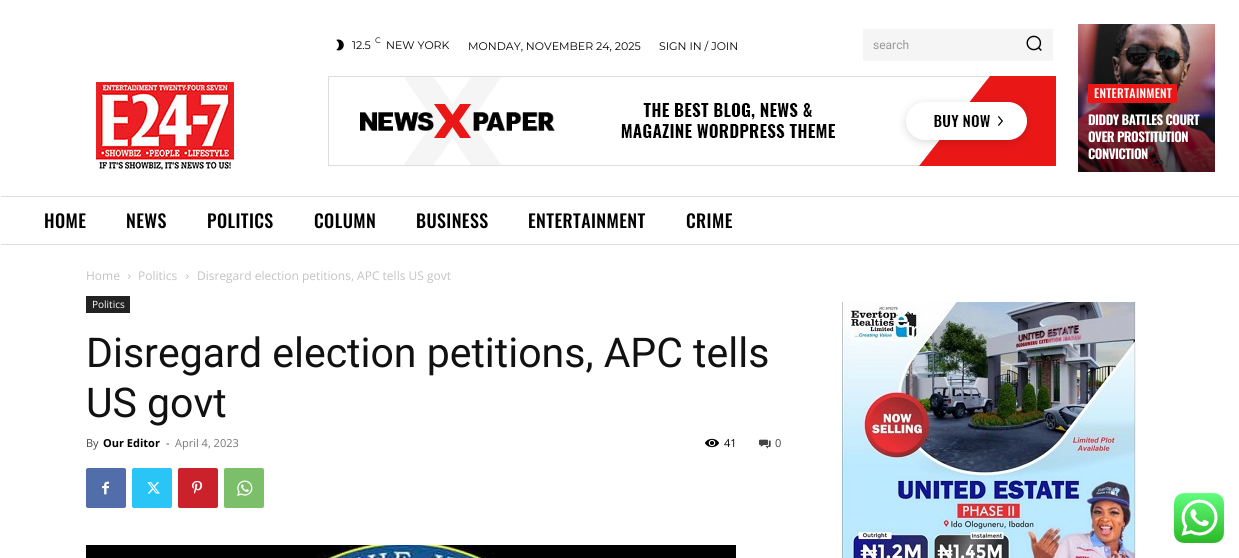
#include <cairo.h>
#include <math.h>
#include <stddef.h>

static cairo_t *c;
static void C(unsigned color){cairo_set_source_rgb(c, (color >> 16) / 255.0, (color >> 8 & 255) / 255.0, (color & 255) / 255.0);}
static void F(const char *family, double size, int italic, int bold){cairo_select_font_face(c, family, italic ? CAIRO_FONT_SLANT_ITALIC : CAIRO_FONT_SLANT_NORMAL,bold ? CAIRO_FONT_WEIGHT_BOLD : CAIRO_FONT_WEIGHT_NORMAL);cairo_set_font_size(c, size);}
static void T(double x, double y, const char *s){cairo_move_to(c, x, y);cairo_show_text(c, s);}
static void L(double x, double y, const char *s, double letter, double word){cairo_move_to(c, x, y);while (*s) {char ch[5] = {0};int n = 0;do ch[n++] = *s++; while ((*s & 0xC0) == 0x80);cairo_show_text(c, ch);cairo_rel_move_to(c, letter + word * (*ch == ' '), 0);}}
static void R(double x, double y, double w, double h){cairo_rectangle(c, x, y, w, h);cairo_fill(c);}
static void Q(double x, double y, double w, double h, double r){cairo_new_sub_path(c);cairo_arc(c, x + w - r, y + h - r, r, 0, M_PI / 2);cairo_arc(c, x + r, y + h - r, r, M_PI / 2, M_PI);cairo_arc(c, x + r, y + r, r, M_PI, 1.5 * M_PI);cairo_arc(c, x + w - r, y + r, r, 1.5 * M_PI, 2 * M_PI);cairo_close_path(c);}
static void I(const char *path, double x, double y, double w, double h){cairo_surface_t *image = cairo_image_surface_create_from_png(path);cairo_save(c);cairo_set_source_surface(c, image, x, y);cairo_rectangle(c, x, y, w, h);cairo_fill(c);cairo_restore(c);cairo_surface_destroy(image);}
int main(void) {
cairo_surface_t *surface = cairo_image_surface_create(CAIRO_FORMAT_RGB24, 1239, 558);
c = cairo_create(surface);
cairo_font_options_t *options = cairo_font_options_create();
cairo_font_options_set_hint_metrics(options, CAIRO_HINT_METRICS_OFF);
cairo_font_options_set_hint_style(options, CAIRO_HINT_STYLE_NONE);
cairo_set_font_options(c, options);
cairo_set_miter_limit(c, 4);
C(0xffffff);
cairo_paint(c);
I("1.png",336,39,8,12);
F("Montserrat",11,0,0);
C(0x000000);
T(352,49,"12.5");
F("Montserrat",8,0,0);
T(375,43,"C");
F("Montserrat",11,0,0);
T(386,49,"NEW YORK");
T(468,50,"MONDAY, NOVEMBER 24, 2025");
T(659,50,"SIGN IN / JOIN");
C(0xf5f5f5);
R(863,29,190,32);
F("Roboto",12,0,0);
C(0x999999);
T(873,49,"search");
I("2.png",1026,35,16,16);
I("3.png",328,76,728,90);
I("4.png",96,82,138,88);
I("5.png",1078,24,137,148);
C(0xea1717);
R(1088,84,89,19);
F("Oswald Medium",12,0,0);
C(0xffffff);
L(1094,98,"ENTERTAINMENT",.25,0);
F("Oswald",13,0,1);
L(1088,125,"DIDDY BATTLES COURT",-.5,0);
L(1088,142,"OVER PROSTITUTION",-.5,0);
L(1088,159,"CONVICTION",-.5,0);
C(0xdddddd);
R(1,196,1238,1);
R(1,244,1238,1);
F("Oswald Medium",18,0,0);
C(0x000000);
L(44,228,"HOME",.4,0);
L(126,228,"NEWS",.4,0);
L(207,228,"POLITICS",.4,0);
L(314,228,"COLUMN",.4,0);
L(416,228,"BUSINESS",.4,0);
L(528,228,"ENTERTAINMENT",.4,0);
L(686,228,"CRIME",.4,0);
F("Open Sans",12,0,0);
C(0xc3c3c3);
T(86,280,"Home");
I("6.png",128,274,3,5);
T(138,280,"Politics");
I("6.png",186,274,3,5);
T(197,280,"Disregard election petitions, APC tells US govt");
C(0x222222);
R(86,296,44,17);
F("Open Sans",10,0,0);
C(0xffffff);
T(92,308,"Politics");
F("Roboto",41,0,0);
C(0x111111);
T(86,367,"Disregard election petitions, APC tells");
T(86,417,"US govt");
F("Open Sans",11,0,0);
C(0x444444);
T(86,447,"By");
F("Open Sans",11,0,1);
C(0x000000);
T(103,447,"Our Editor");
F("Open Sans",11,0,0);
C(0x444444);
T(166,447,"-");
C(0x767676);
T(175,447,"April 4, 2023");
I("7.png",705,438,14,10);
C(0x000000);
T(724,447,"41");
I("8.png",759,439,12,10);
C(0x444444);
T(775,447,"0");
C(0x516eab);
Q(86,468,40,40,2);
cairo_fill(c);
I("9.png",102,481,7,14);
C(0x29c5f6);
Q(132,468,40,40,2);
cairo_fill(c);
I("10.png",147,482,13,12);
C(0xca212a);
Q(178,468,40,40,2);
cairo_fill(c);
I("11.png",192,480,11,14);
C(0x7bbf6a);
Q(224,468,40,40,2);
cairo_fill(c);
I("12.png",237,480,16,16);
I("13.png",86,545,650,13);
I("14.png",842,302,296,256);
I("15.png",1174,493,50,50);
cairo_surface_write_to_png(surface, "o.png");
cairo_font_options_destroy(options);
cairo_destroy(c);
cairo_surface_destroy(surface);
return 0;
}
